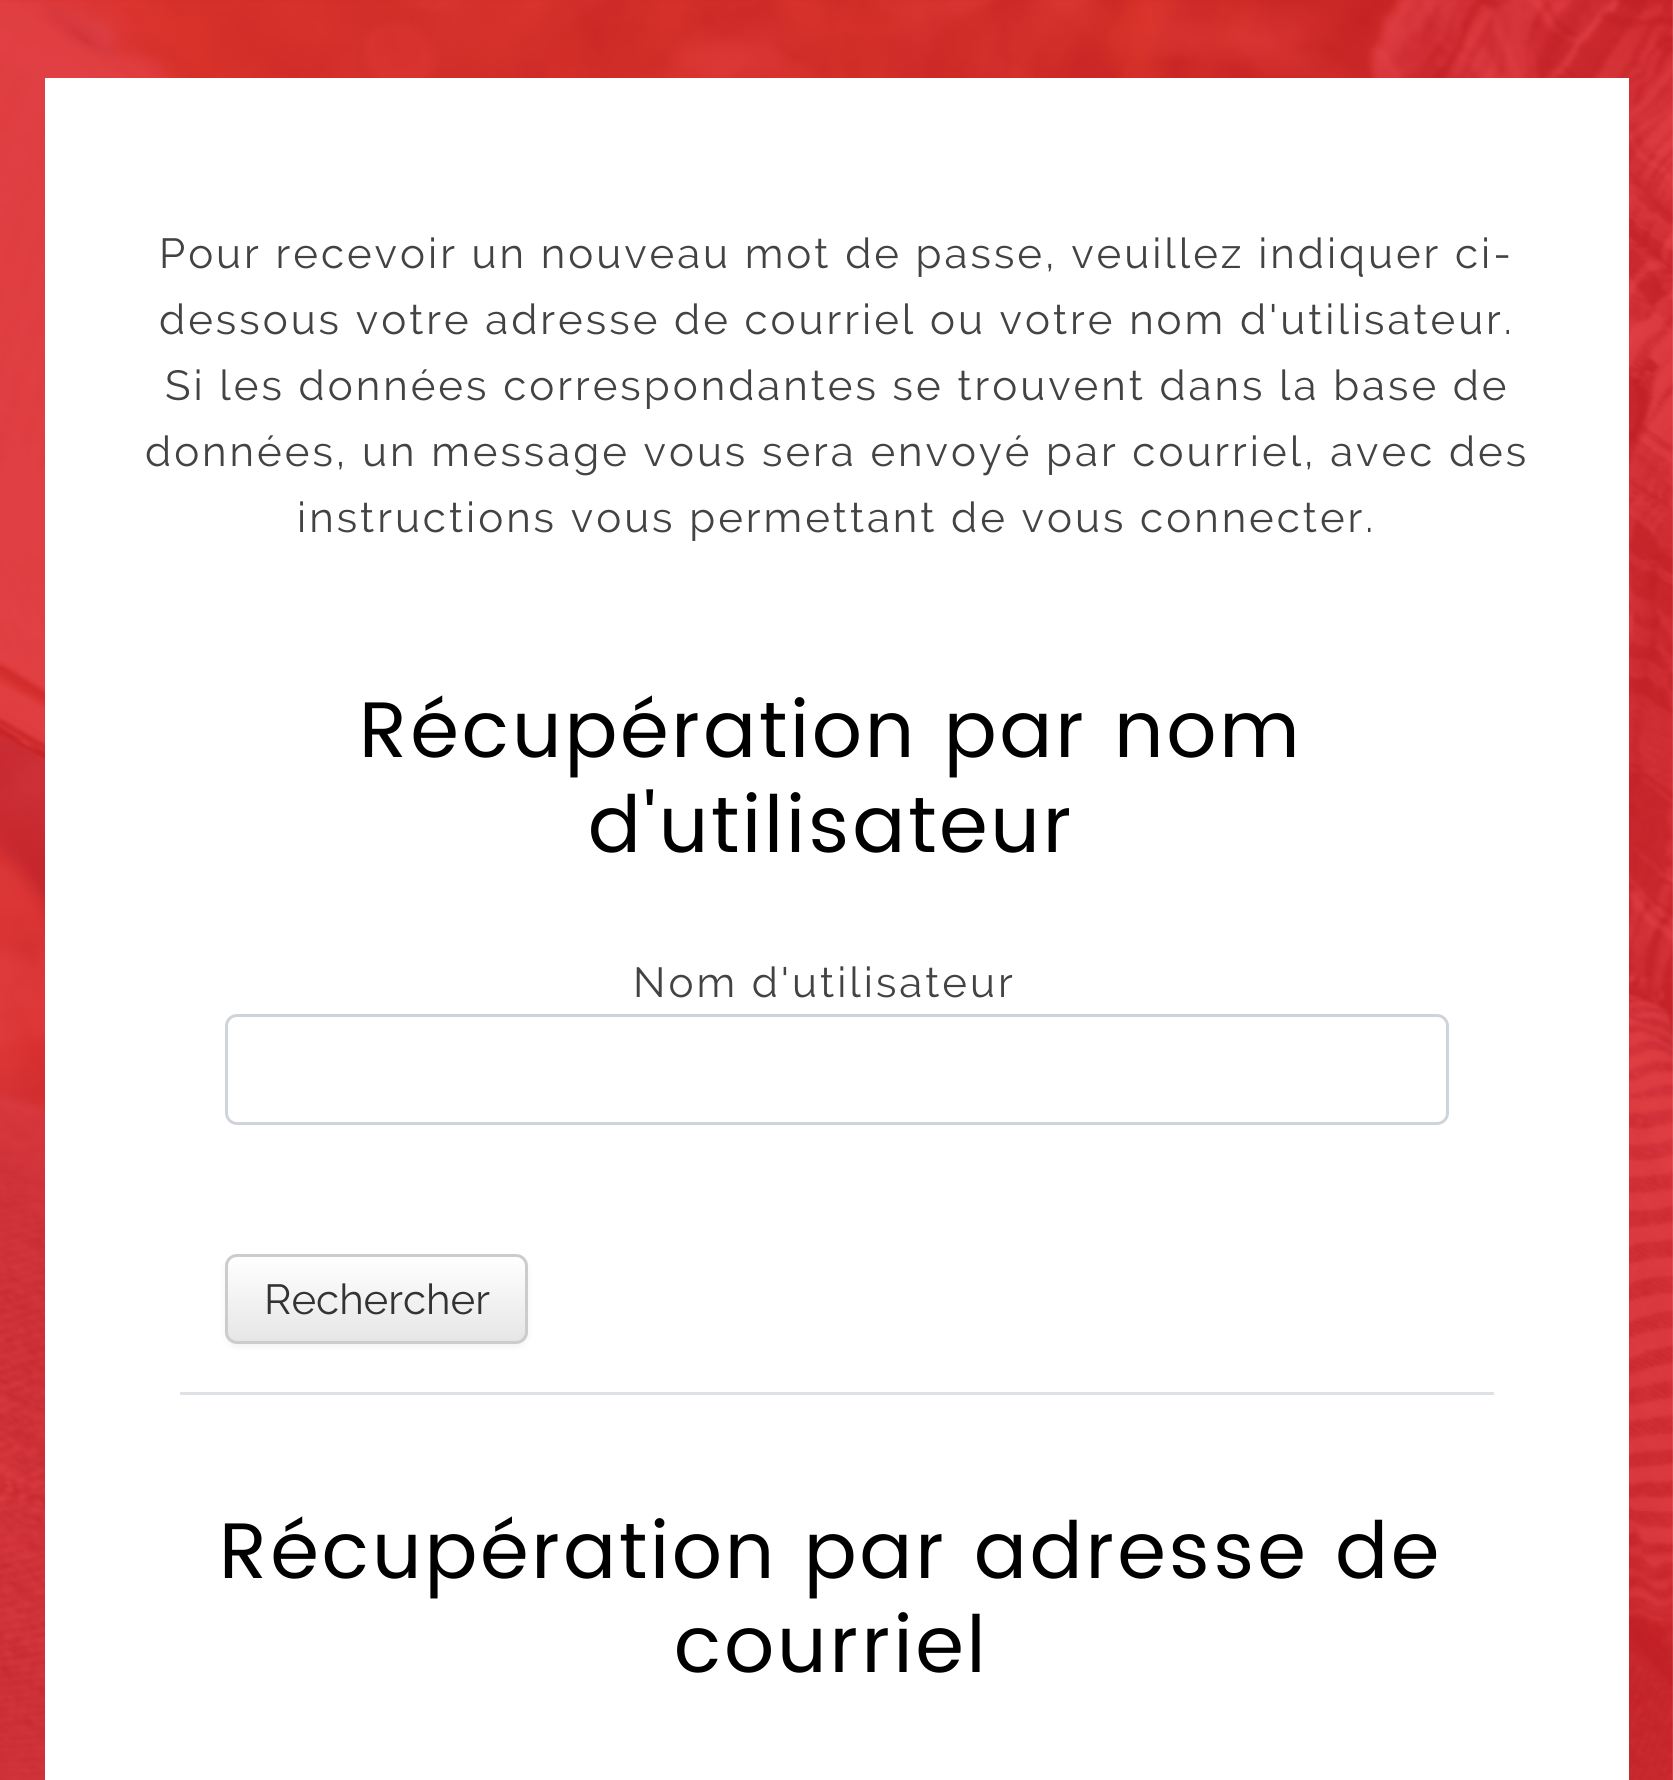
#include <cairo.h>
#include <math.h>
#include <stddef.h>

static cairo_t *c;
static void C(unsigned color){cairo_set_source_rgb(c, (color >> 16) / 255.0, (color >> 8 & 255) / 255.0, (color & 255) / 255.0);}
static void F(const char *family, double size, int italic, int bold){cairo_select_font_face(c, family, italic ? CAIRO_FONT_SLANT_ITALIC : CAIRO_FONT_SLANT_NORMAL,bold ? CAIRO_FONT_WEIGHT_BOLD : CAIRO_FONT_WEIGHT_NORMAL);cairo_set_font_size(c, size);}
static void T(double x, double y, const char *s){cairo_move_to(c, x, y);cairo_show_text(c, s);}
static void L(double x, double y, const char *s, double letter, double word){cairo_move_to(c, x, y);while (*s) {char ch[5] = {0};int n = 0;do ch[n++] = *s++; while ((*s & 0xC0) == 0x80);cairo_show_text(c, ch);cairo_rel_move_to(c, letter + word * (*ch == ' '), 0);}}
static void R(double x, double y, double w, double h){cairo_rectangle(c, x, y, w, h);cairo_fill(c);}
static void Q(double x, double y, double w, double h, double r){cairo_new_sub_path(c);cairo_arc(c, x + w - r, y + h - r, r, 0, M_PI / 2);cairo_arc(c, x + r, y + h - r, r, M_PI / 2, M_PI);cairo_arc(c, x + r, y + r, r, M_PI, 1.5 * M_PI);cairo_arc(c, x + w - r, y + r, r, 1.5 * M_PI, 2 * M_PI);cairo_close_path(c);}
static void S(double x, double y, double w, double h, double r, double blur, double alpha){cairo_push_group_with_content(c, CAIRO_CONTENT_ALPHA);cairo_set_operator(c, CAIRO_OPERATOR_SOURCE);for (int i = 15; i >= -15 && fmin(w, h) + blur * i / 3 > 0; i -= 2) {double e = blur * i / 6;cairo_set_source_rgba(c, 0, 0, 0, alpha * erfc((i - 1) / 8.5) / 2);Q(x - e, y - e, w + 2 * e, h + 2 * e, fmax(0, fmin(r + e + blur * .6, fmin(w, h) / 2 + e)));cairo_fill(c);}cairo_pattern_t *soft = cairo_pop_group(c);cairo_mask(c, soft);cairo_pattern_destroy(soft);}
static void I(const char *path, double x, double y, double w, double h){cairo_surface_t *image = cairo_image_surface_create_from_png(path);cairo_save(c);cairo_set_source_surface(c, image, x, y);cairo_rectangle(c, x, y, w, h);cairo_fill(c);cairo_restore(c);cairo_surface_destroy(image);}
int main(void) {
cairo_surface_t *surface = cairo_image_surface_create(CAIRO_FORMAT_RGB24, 1673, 1780);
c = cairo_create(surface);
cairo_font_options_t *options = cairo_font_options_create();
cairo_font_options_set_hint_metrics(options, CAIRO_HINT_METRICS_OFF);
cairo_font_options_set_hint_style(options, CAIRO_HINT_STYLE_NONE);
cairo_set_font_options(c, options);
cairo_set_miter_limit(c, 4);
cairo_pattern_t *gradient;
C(0xffffff);
cairo_paint(c);
I("1.png",0,0,1673,1780);
C(0xffffff);
R(45,78,1584,1702);
F("Raleway",42,0,0);
C(0x444343);
L(159,268,"Pour recevoir un nouveau mot de passe, veuillez indiquer ci-",3,0);
L(159,334,"dessous votre adresse de courriel ou votre nom d'utilisateur.",3,0);
L(165,400,"Si les données correspondantes se trouvent dans la base de",3,0);
L(145,466,"données, un message vous sera envoyé par courriel, avec des",3,0);
L(297,532,"instructions vous permettant de vous connecter.",3,0);
C(0xdee2e6);
R(180,1392,1314,3);
F("Poppins",78.75,0,0);
C(0x000000);
L(359,757,"Récupération par nom",3,0);
L(588,852,"d'utilisateur",3,0);
F("Raleway",42,0,0);
C(0x444343);
L(633,997,"Nom d'utilisateur",3,0);
Q(226.5,1015.5,1221,108,10.5);
C(0xced4da);
cairo_set_line_width(c,3);
cairo_stroke(c);
C(0x000000);
S(225,1257,303,90,12,3,.05);
cairo_save(c);
Q(225,1254,303,90,12);
cairo_clip(c);
gradient = cairo_pattern_create_linear(377,1257,377,1341);
cairo_pattern_add_color_stop_rgba(gradient,0,1,1,1,1);
cairo_pattern_add_color_stop_rgba(gradient,1,0.902,0.902,0.902,1);
cairo_set_source(c,gradient);
cairo_pattern_destroy(gradient);
R(225,1257,303,84);
cairo_restore(c);
Q(226.5,1255.5,300,87,10.5);
C(0xcccccc);
cairo_stroke(c);
C(0x333333);
T(264,1314,"Rechercher");
F("Poppins",78.75,0,0);
C(0x000000);
L(219,1578,"Récupération par adresse de",3,0);
L(674,1672,"courriel",3,0);
cairo_surface_write_to_png(surface, "o.png");
cairo_font_options_destroy(options);
cairo_destroy(c);
cairo_surface_destroy(surface);
return 0;
}
